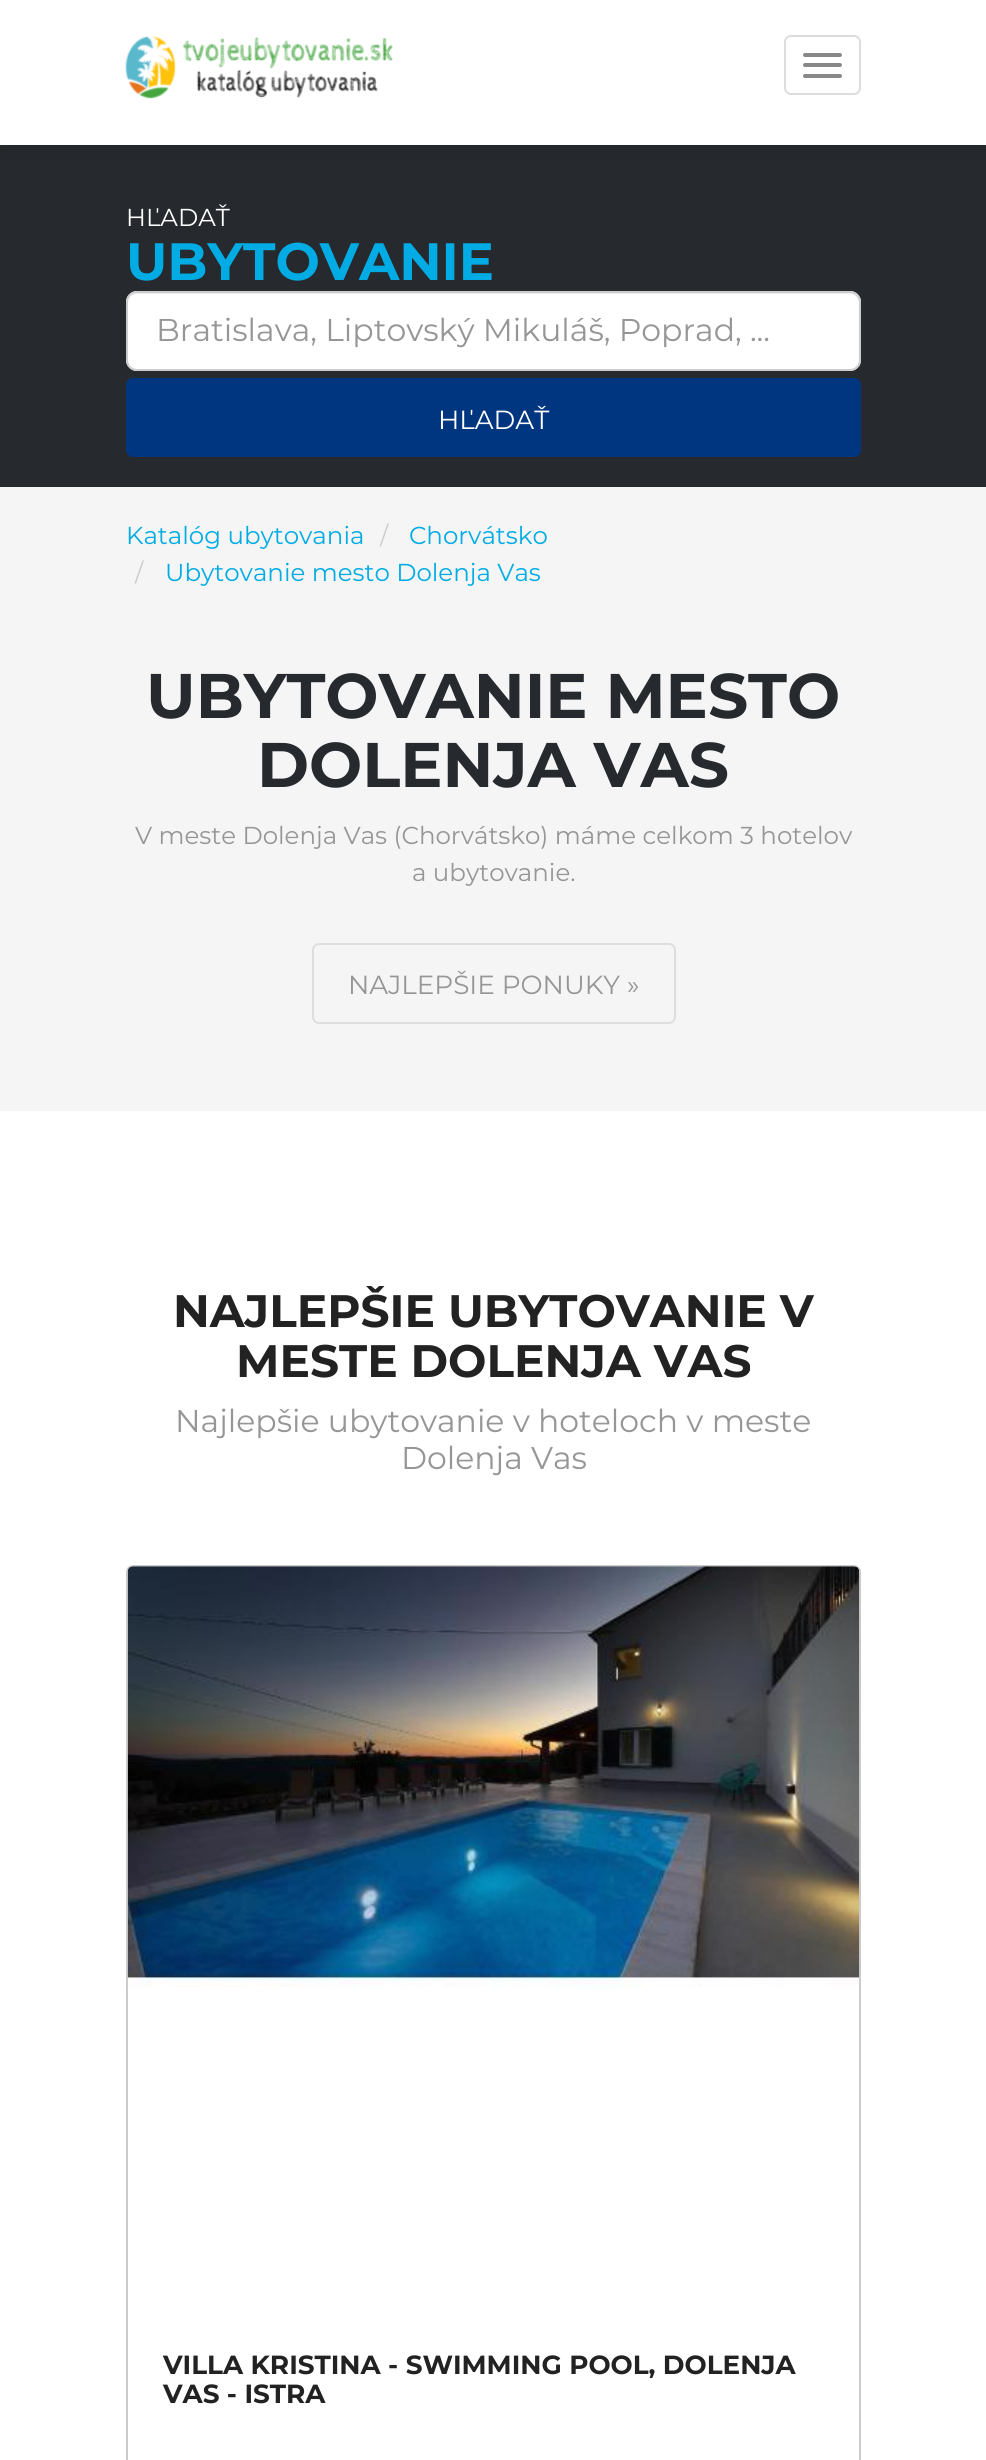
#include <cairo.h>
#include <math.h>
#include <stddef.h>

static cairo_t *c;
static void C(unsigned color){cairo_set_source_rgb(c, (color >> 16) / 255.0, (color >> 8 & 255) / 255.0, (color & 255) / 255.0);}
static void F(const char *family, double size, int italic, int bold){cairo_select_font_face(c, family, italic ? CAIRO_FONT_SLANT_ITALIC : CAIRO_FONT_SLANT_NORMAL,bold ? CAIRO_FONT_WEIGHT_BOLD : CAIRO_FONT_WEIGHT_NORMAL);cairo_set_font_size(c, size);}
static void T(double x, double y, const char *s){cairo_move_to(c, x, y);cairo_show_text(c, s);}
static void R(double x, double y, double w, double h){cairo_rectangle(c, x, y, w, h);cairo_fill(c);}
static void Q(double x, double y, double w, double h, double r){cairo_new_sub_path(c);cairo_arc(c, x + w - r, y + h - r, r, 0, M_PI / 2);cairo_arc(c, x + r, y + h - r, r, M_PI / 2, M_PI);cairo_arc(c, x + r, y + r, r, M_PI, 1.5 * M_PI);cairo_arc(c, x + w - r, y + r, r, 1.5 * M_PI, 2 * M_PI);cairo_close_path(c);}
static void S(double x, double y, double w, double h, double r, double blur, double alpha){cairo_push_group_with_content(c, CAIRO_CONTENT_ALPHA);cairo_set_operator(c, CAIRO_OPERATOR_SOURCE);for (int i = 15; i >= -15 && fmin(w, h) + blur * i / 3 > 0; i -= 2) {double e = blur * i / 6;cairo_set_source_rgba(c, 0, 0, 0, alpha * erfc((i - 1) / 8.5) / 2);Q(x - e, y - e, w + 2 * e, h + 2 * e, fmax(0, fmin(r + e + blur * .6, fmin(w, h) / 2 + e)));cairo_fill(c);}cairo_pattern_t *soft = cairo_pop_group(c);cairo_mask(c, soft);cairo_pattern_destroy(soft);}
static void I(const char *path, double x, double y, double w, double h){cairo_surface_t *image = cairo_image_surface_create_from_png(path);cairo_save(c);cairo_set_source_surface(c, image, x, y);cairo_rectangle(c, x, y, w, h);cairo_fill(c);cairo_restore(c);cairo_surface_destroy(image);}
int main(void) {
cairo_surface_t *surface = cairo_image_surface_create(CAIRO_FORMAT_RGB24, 986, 2460);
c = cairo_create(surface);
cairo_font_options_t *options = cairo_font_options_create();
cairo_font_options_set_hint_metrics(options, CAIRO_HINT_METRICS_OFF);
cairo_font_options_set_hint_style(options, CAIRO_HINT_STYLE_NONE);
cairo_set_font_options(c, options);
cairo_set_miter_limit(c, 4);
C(0xffffff);
cairo_paint(c);
C(0x262a2e);
R(0,145,986,342);
C(0x000000);
S(0,5,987,146,0,9,.1);
C(0xffffff);
R(0,0,986,145);
I("1.png",125,36,268,63);
Q(785,36,75,58,6);
C(0xdddddd);
cairo_stroke(c);
C(0x888888);
Q(803,53,39,4,2);
cairo_fill(c);
Q(803,63,39,4,2);
cairo_fill(c);
Q(803,74,39,4,2);
cairo_fill(c);
F("Montserrat",24.5,0,0);
C(0xffffff);
T(126,226,"HĽADAŤ");
F("Montserrat",52.5,0,1);
C(0x01ace4);
T(126,280,"UBYTOVANIE");
C(0xffffff);
Q(126,291,735,80,11);
cairo_fill(c);
C(0xececec);
cairo_new_path(c);
cairo_move_to(c,136,294);
cairo_line_to(c,850,294);
cairo_curve_to(c,855,294,859,298,859,303);
cairo_line_to(c,859,301);
cairo_curve_to(c,859,296,855,292,850,292);
cairo_line_to(c,137,292);
cairo_curve_to(c,132,292,128,296,128,301);
cairo_line_to(c,128,303);
cairo_curve_to(c,128,298,132,294,136,294);
cairo_close_path(c);
cairo_fill(c);
Q(127,292,733,78,10);
C(0xcccccc);
cairo_stroke(c);
F("Montserrat",31.5,0,0);
C(0x969696);
T(156,341,"Bratislava, Liptovský Mikuláš, Poprad, ...");
C(0x003580);
Q(126,378,735,79,7);
cairo_fill(c);
F("Montserrat",26.25,0,0);
C(0xffffff);
T(438,429,"HĽADAŤ");
C(0xf5f5f5);
R(0,487,986,624);
F("Montserrat",24.5,0,0);
C(0x01ace4);
T(126,544,"Katalóg ubytovania");
C(0xcccccc);
T(380,544,"/");
C(0x01ace4);
T(409,544,"Chorvátsko");
C(0xcccccc);
T(135,581,"/");
C(0x01ace4);
T(165,581,"Ubytovanie mesto Dolenja Vas");
F("Montserrat",63,0,1);
C(0x262a2e);
T(146,718,"UBYTOVANIE MESTO");
T(257,787,"DOLENJA VAS");
F("Montserrat",24.5,0,0);
C(0x969696);
T(135,844,"V meste Dolenja Vas (Chorvátsko) máme celkom 3 hotelov");
T(412,881,"a ubytovanie.");
Q(313,944,362,79,6);
C(0xdedede);
cairo_stroke(c);
F("Montserrat",26.25,0,0);
C(0x969696);
T(348,994,"NAJLEPŠIE PONUKY »");
F("Montserrat",45.5,0,1);
C(0x222222);
T(173,1327,"NAJLEPŠIE UBYTOVANIE V");
T(236,1377,"MESTE DOLENJA VAS");
F("Montserrat",31.5,0,0);
C(0x969696);
T(175,1432,"Najlepšie ubytovanie v hoteloch v meste");
T(401,1469,"Dolenja Vas");
Q(127,1566,733,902,6);
C(0xcbcbcb);
cairo_stroke(c);
I("2.png",127,1566,733,422);
F("Montserrat",26.25,0,1);
C(0x222222);
T(163,2374,"VILLA KRISTINA - SWIMMING POOL, DOLENJA");
T(163,2403,"VAS - ISTRA");
cairo_surface_write_to_png(surface, "o.png");
cairo_font_options_destroy(options);
cairo_destroy(c);
cairo_surface_destroy(surface);
return 0;
}
